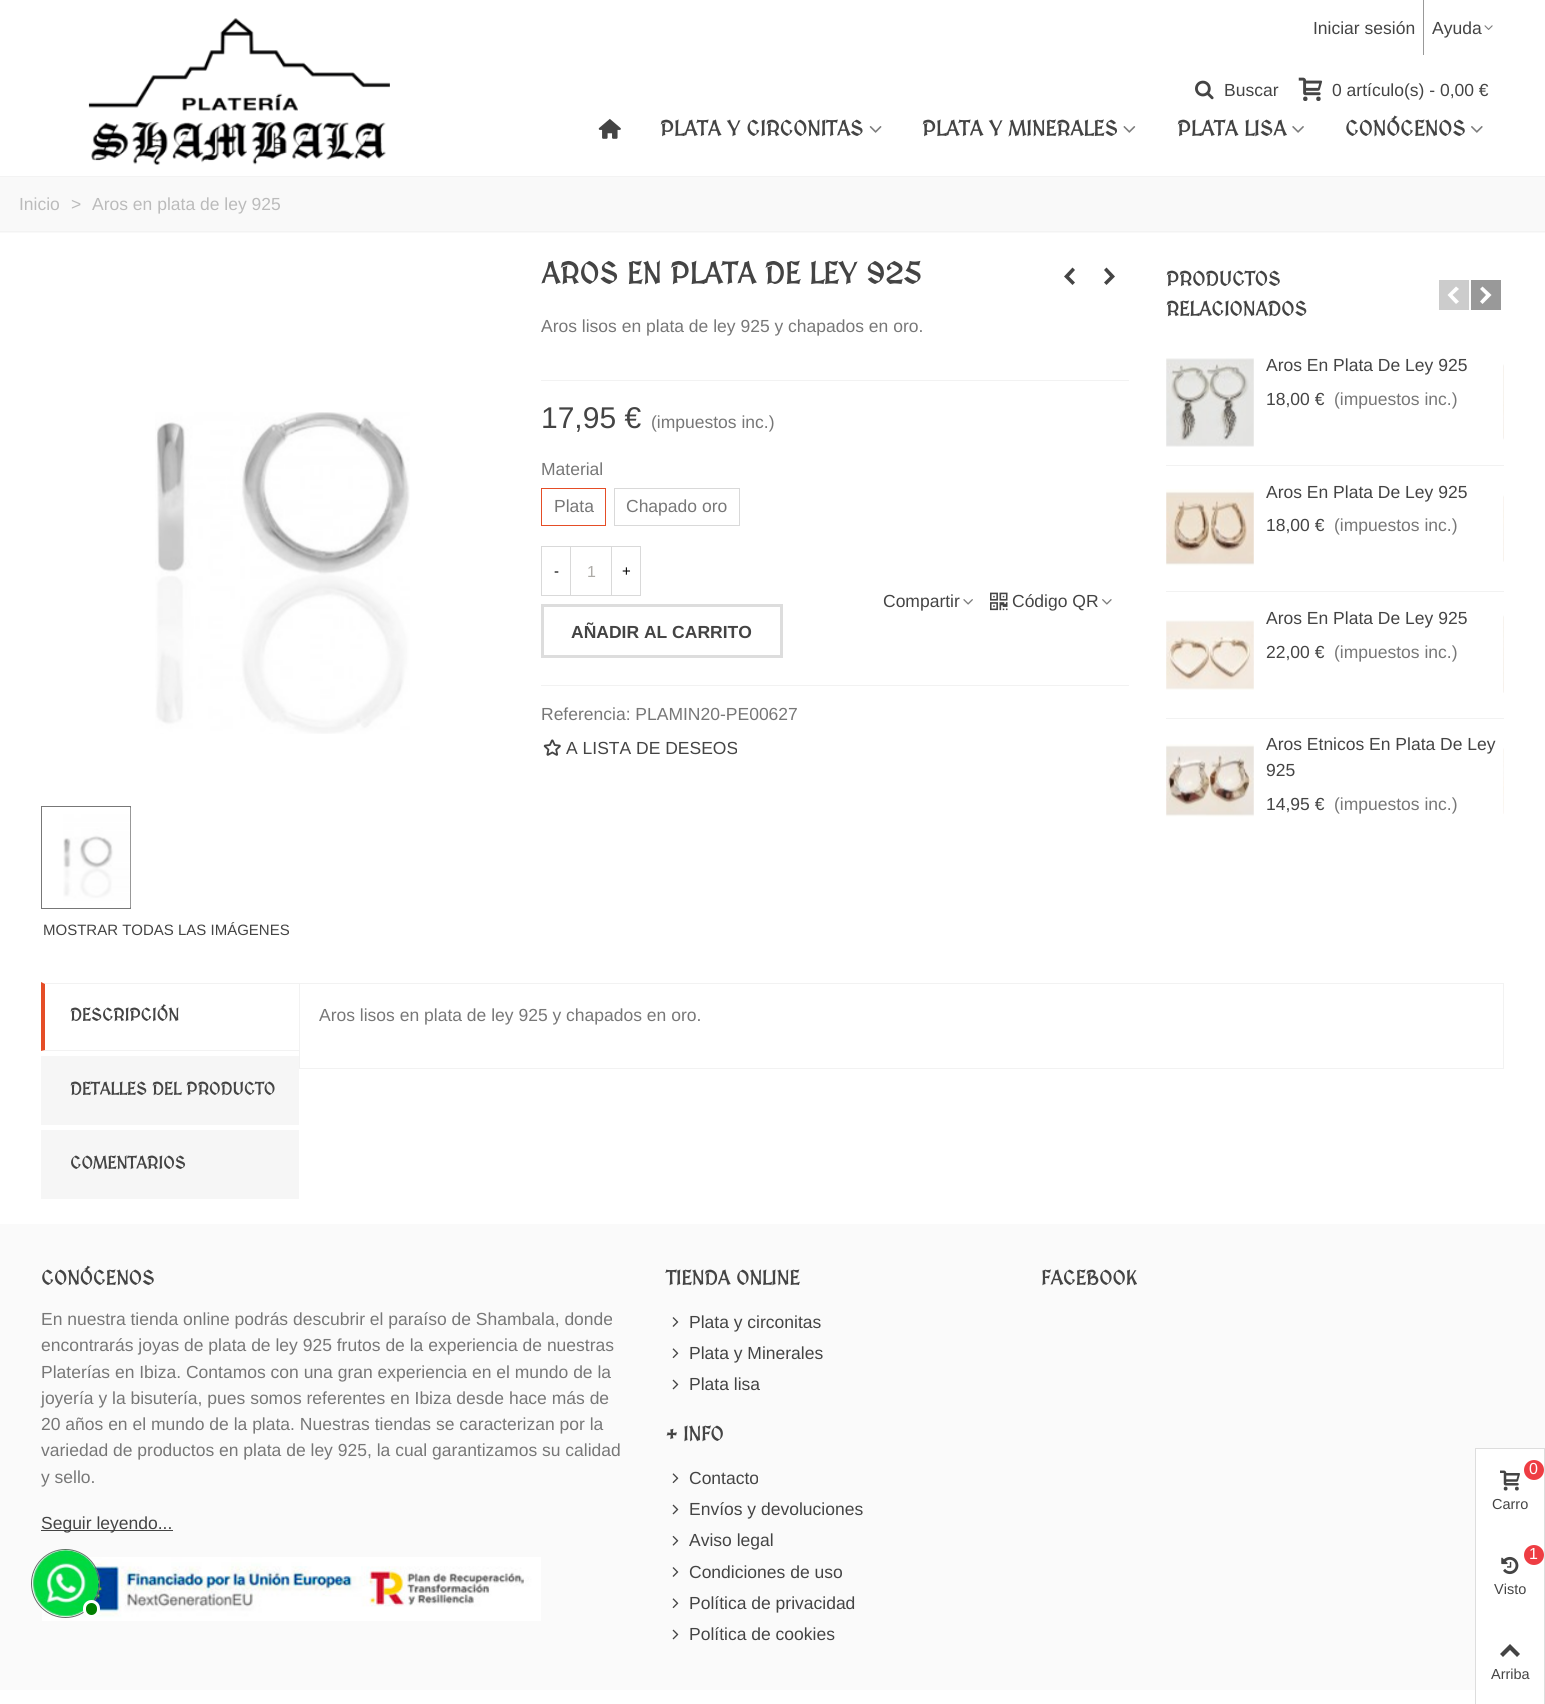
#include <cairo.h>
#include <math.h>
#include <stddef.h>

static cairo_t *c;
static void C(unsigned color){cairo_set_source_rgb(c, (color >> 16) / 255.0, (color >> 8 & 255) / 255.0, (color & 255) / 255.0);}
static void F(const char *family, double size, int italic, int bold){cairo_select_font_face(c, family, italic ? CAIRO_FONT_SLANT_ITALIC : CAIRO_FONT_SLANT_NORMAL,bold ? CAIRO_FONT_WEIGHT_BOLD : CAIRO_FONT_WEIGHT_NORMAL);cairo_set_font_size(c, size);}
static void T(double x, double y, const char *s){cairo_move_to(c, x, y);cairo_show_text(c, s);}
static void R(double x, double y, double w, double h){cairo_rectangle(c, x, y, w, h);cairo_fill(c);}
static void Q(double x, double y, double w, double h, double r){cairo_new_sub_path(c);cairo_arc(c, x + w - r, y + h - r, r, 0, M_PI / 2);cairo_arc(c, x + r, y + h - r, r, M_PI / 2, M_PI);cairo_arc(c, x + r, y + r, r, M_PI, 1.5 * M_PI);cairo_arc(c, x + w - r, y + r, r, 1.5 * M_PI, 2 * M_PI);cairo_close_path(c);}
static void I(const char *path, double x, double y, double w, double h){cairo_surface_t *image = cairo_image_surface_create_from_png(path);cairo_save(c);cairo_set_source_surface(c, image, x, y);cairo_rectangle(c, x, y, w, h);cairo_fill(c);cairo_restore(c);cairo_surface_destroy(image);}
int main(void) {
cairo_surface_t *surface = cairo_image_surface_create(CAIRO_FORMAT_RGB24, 1545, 1704);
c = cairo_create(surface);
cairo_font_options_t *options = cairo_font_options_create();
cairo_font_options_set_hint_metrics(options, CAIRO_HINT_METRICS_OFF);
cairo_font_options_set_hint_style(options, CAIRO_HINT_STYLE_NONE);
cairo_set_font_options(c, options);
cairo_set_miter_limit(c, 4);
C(0xffffff);
cairo_paint(c);
F("Liberation Sans",17.5,0,0);
C(0x444444);
T(1313,34,"Iniciar sesión");
C(0x999999);
R(1423,0,1,55);
C(0x444444);
T(1432,34,"Ayuda");
I("1.png",1484,25,9,5);
I("2.png",88,18,302,147);
I("3.png",1195,80,19,20);
T(1224,96,"Buscar");
I("4.png",1298,77,25,24);
T(1332,96,"0 artículo(s) - 0,00 €");
I("5.png",598,118,23,21);
F("MedievalSharp",21.25,0,1);
T(660,136,"PLATA Y CIRCONITAS");
I("6.png",869,126,13,7);
T(922,136,"PLATA Y MINERALES");
I("7.png",1123,126,13,7);
T(1177,136,"PLATA LISA");
I("8.png",1292,126,12,7);
T(1345,136,"CONÓCENOS");
I("9.png",1471,126,12,7);
C(0xf9f9f9);
R(0,177,1545,56);
C(0xf3f3f3);
R(0,176,1545,1);
R(0,231,1545,1);
F("Liberation Sans",17.5,0,0);
C(0xbbbbbb);
T(19,210,"Inicio");
T(71,210,">");
T(92,210,"Aros en plata de ley 925");
F("MedievalSharp",30,0,1);
C(0x444444);
T(541,284,"AROS EN PLATA DE LEY 925");
cairo_new_path(c);
cairo_move_to(c,1064,276.5);
cairo_line_to(c,1072.5,267.5);
cairo_line_to(c,1075,270);
cairo_line_to(c,1069,276.5);
cairo_line_to(c,1075,282.5);
cairo_line_to(c,1072.5,285);
cairo_close_path(c);
cairo_move_to(c,1104,282.5);
cairo_line_to(c,1110,276.5);
cairo_line_to(c,1104,270);
cairo_line_to(c,1106.5,267.5);
cairo_line_to(c,1115,276.5);
cairo_line_to(c,1106.5,285);
cairo_close_path(c);
cairo_fill(c);
F("Liberation Sans",17.5,0,0);
C(0x777777);
T(541,332,"Aros lisos en plata de ley 925 y chapados en oro.");
C(0xf2f2f2);
R(541,380,588,1);
F("Liberation Sans",30,0,0);
C(0x444444);
T(541,428,"17,95 €");
F("Liberation Sans",17.5,0,0);
C(0x777777);
T(651,428,"(impuestos inc.)");
T(541,475,"Material");
cairo_rectangle(c,541.5,488.5,64,37);
C(0xe54d26);
cairo_set_line_width(c,1);
cairo_stroke(c);
C(0x777777);
T(554,512,"Plata");
cairo_rectangle(c,614.5,488.5,125,37);
C(0xd9d9d9);
cairo_stroke(c);
C(0x777777);
T(626,512,"Chapado oro");
cairo_rectangle(c,541.5,546.5,29,49);
C(0xd9d9d9);
cairo_stroke(c);
F("Liberation Sans",15,0,0);
C(0x000000);
T(554,576,"-");
cairo_rectangle(c,570.5,546.5,42,49);
C(0xd9d9d9);
cairo_stroke(c);
F("Liberation Sans",16,0,0);
C(0xacaaa6);
T(587,577,"1");
C(0xffffff);
R(612,547,1,48);
cairo_rectangle(c,611.5,546.5,29,49);
C(0xd9d9d9);
cairo_stroke(c);
F("Liberation Sans",15,0,0);
C(0x000000);
T(622,576,"+");
cairo_rectangle(c,542.5,605.5,239,51);
C(0xdddddd);
cairo_set_line_width(c,3);
cairo_stroke(c);
F("Liberation Sans",17.5,0,1);
C(0x444444);
T(571,638,"AÑADIR AL CARRITO");
F("Liberation Sans",17.5,0,0);
T(883,607,"Compartir");
I("10.png",963,599,10,6);
I("11.png",990,592,18,19);
T(1012,607,"Código QR");
I("12.png",1102,599,10,6);
C(0xf2f2f2);
R(541,685,588,1);
C(0x777777);
T(541,720,"Referencia: PLAMIN20-PE00627");
I("13.png",543,739,18,17);
C(0x444444);
T(566,754,"A LISTA DE DESEOS");
F("MedievalSharp",20,0,1);
T(1166,286,"PRODUCTOS");
T(1166,316,"RELACIONADOS");
C(0xcccccc);
R(1439,280,30,30);
C(0xffffff);
cairo_new_path(c);
cairo_move_to(c,1447.5,295);
cairo_line_to(c,1456,286.5);
cairo_line_to(c,1459,289);
cairo_line_to(c,1452.5,295);
cairo_line_to(c,1459,301.5);
cairo_line_to(c,1456,304);
cairo_close_path(c);
cairo_fill(c);
C(0x999999);
R(1471,280,30,30);
C(0xffffff);
cairo_new_path(c);
cairo_move_to(c,1480,301.5);
cairo_line_to(c,1486,295);
cairo_line_to(c,1480,289);
cairo_line_to(c,1482.5,286.5);
cairo_line_to(c,1491.5,295);
cairo_line_to(c,1482.5,304);
cairo_close_path(c);
cairo_fill(c);
C(0xf2f2f2);
R(1166,465,338,1);
I("14.png",1166,358,88,89);
F("Liberation Sans",17.5,0,0);
C(0x444444);
T(1266,371,"Aros En Plata De Ley 925");
T(1266,405,"18,00 €");
C(0x777777);
T(1334,405,"(impuestos inc.)");
C(0xf2f2f2);
R(1166,591,338,1);
I("15.png",1166,489,88,77);
C(0x444444);
T(1266,498,"Aros En Plata De Ley 925");
T(1266,531,"18,00 €");
C(0x777777);
T(1334,531,"(impuestos inc.)");
C(0xf2f2f2);
R(1166,718,338,1);
I("16.png",1166,620,88,70);
C(0x444444);
T(1266,624,"Aros En Plata De Ley 925");
T(1266,658,"22,00 €");
C(0x777777);
T(1334,658,"(impuestos inc.)");
I("17.png",1166,744,88,73);
C(0x444444);
T(1266,750,"Aros Etnicos En Plata De Ley");
T(1266,776,"925");
T(1266,810,"14,95 €");
C(0x777777);
T(1334,810,"(impuestos inc.)");
I("18.png",1503,364,1,76);
I("19.png",1503,495,1,67);
I("20.png",1503,615,1,78);
I("21.png",1503,748,1,66);
I("22.png",155,412,255,322);
cairo_rectangle(c,41.5,806.5,89,102);
cairo_set_line_width(c,1);
cairo_stroke(c);
I("23.png",63,807,68,101);
F("Liberation Sans",15,0,0);
C(0x444444);
T(43,935,"MOSTRAR TODAS LAS IMÁGENES");
cairo_save(c);
cairo_rectangle(c,41,983,258,221);
cairo_clip(c);
C(0xf2f2f2);
cairo_new_path(c);
cairo_move_to(c,41,982);
cairo_line_to(c,300,982);
cairo_line_to(c,300,984);
cairo_line_to(c,45,984);
cairo_close_path(c);
cairo_fill(c);
cairo_restore(c);
C(0xf2f2f2);
cairo_new_path(c);
cairo_move_to(c,300,1051);
cairo_line_to(c,41,1051);
cairo_line_to(c,45,1050);
cairo_line_to(c,300,1050);
cairo_close_path(c);
cairo_fill(c);
C(0xe54d26);
cairo_new_path(c);
cairo_move_to(c,41,1051);
cairo_line_to(c,41,982);
cairo_line_to(c,45,984);
cairo_line_to(c,45,1050);
cairo_close_path(c);
cairo_fill(c);
F("MedievalSharp",17.5,0,1);
C(0x444444);
T(70,1021,"DESCRIPCIÓN");
C(0xf6f6f6);
R(41,1056,258,69);
C(0x444444);
T(70,1095,"DETALLES DEL PRODUCTO");
C(0xf6f6f6);
R(41,1130,258,69);
C(0x444444);
T(70,1169,"COMENTARIOS");
cairo_rectangle(c,299.5,983.5,1204,85);
C(0xf2f2f2);
cairo_stroke(c);
F("Liberation Sans",17.5,0,0);
C(0x777777);
T(319,1021,"Aros lisos en plata de ley 925 y chapados en oro.");
C(0xfafafa);
R(0,1224,1545,466);
F("MedievalSharp",20,0,1);
C(0x444444);
T(41,1285,"CONÓCENOS");
F("Liberation Sans",17.5,0,0);
C(0x777777);
T(41,1325,"En nuestra tienda online podrás descubrir el paraíso de Shambala, donde");
T(41,1351,"encontrarás joyas de plata de ley 925 frutos de la experiencia de nuestras");
T(41,1378,"Platerías en Ibiza. Contamos con una gran experiencia en el mundo de la");
T(41,1404,"joyería y la bisutería, pues somos referentes en Ibiza desde hace más de");
T(41,1430,"20 años en el mundo de la plata. Nuestras tiendas se caracterizan por la");
T(41,1456,"variedad de productos en plata de ley 925, la cual garantizamos su calidad");
T(41,1483,"y sello.");
C(0x444444);
R(41,1530,132,1);
T(41,1529,"Seguir leyendo...");
I("24.png",42,1557,499,64);
F("MedievalSharp",20,0,1);
T(666,1285,"TIENDA ONLINE");
I("25.png",672,1317,7,10);
F("Liberation Sans",17.5,0,0);
T(689,1328,"Plata y circonitas");
I("26.png",672,1348,7,11);
T(689,1359,"Plata y Minerales");
I("27.png",672,1379,7,11);
T(689,1390,"Plata lisa");
F("MedievalSharp",20,0,1);
T(666,1441,"+ INFO");
I("26.png",672,1473,7,11);
F("Liberation Sans",17.5,0,0);
T(689,1484,"Contacto");
I("27.png",672,1504,7,11);
T(689,1515,"Envíos y devoluciones");
I("28.png",672,1535,7,11);
T(689,1546,"Aviso legal");
I("25.png",672,1567,7,10);
T(689,1578,"Condiciones de uso");
I("26.png",672,1598,7,11);
T(689,1609,"Política de privacidad");
I("27.png",672,1629,7,11);
T(689,1640,"Política de cookies");
F("MedievalSharp",20,0,1);
T(1041,1285,"FACEBOOK");
cairo_new_path(c);
cairo_arc(c,65.5,1583.5,34,0,2 * M_PI);
C(0x666666);
cairo_stroke(c);
I("29.png",32,1549,68,68);
C(0x008000);
Q(84.5,1601.5,14,15,7);
cairo_fill_preserve(c);
C(0xffffff);
cairo_set_line_width(c,3);
cairo_stroke(c);
cairo_rectangle(c,1475.5,1448.5,69,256);
C(0xdddddd);
cairo_set_line_width(c,1);
cairo_stroke(c);
C(0xffffff);
R(1476,1449,68,241);
C(0xee3d43);
cairo_arc(c,1534,1470,10,0,2 * M_PI);
cairo_fill(c);
F("Liberation Sans",16,0,0);
C(0xffffff);
T(1529,1474,"0");
I("30.png",1500,1470,20,21);
F("Liberation Sans",14.5,0,0);
C(0x444444);
T(1492,1509,"Carro");
C(0xee3d43);
cairo_new_path(c);
cairo_arc(c,1534,1555,10,0,2 * M_PI);
cairo_fill(c);
F("Liberation Sans",16,0,0);
C(0xffffff);
T(1529,1559,"1");
I("31.png",1501,1556,18,19);
F("Liberation Sans",14.5,0,0);
C(0x444444);
T(1494,1594,"Visto");
cairo_new_path(c);
cairo_move_to(c,1500,1654);
cairo_line_to(c,1510,1644);
cairo_line_to(c,1520,1654);
cairo_line_to(c,1517,1657);
cairo_line_to(c,1510,1650);
cairo_line_to(c,1503,1657);
cairo_close_path(c);
cairo_fill(c);
T(1491,1679,"Arriba");
cairo_surface_write_to_png(surface, "o.png");
cairo_font_options_destroy(options);
cairo_destroy(c);
cairo_surface_destroy(surface);
return 0;
}
